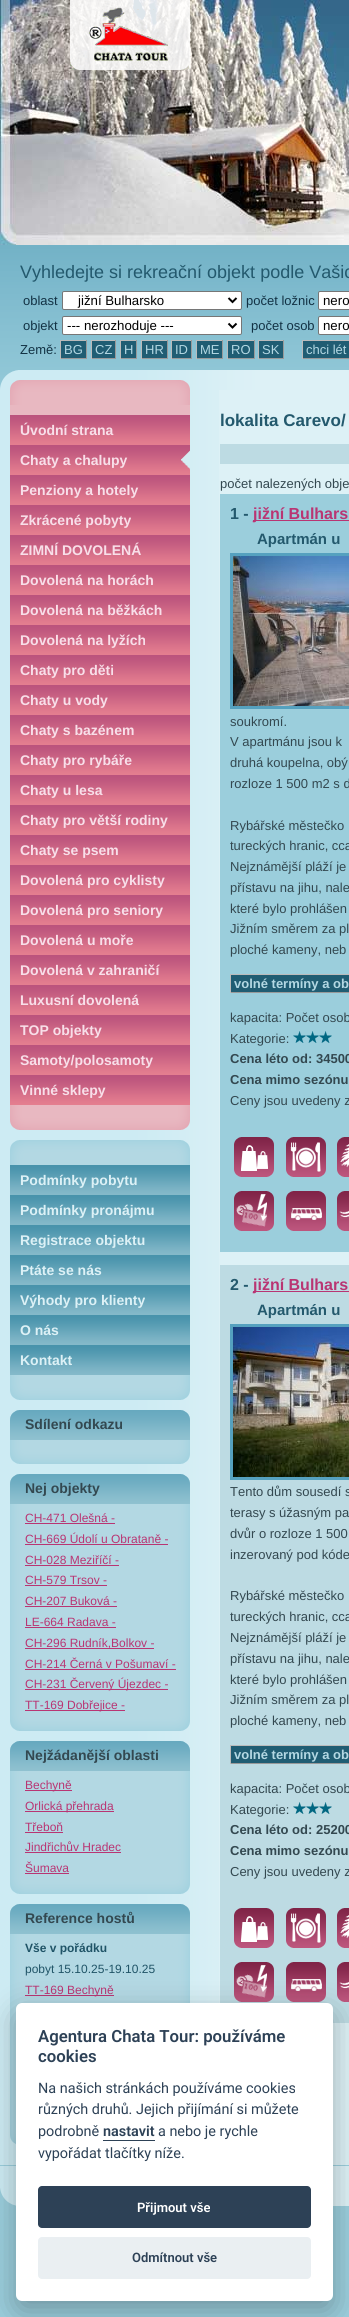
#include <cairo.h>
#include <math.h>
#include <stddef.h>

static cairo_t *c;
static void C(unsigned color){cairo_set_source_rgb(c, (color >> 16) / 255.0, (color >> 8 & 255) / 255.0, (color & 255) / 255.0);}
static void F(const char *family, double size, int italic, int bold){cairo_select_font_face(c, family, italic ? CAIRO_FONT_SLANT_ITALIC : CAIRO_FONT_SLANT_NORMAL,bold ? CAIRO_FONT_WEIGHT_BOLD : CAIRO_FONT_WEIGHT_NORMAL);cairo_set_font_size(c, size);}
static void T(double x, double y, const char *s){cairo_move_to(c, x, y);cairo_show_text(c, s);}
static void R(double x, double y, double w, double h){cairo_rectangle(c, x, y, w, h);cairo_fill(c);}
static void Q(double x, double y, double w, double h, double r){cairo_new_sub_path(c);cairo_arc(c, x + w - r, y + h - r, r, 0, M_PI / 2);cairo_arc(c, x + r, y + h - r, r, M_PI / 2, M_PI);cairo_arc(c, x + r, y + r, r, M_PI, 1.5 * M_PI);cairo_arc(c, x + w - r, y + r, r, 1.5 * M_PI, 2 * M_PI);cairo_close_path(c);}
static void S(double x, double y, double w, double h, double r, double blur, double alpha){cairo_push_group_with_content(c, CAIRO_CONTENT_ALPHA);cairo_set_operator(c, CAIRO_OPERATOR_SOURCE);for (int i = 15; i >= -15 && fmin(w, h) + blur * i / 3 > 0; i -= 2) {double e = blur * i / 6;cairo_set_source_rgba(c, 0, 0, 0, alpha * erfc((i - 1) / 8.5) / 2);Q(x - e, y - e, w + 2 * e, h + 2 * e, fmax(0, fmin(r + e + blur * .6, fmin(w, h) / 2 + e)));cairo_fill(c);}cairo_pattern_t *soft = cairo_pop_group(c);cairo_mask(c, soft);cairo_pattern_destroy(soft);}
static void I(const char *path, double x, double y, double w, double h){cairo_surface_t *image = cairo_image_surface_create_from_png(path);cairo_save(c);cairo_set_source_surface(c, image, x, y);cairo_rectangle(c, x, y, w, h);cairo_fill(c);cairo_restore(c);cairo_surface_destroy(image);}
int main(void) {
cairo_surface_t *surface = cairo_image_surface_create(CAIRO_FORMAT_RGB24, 349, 2317);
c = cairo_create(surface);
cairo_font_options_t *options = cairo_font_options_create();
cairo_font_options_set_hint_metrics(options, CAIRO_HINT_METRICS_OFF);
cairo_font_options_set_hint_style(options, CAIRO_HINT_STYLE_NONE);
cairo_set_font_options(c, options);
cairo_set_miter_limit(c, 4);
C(0x9bcedc);
cairo_paint(c);
I("1.png",0,245,349,125);
I("2.png",0,0,349,245);
I("3.png",70,0,120,70);
F("Liberation Sans",18,0,0);
C(0x23596d);
T(20,278,"Vyhledejte si rekreační objekt podle Vašic");
F("Liberation Sans",13,0,0);
C(0x123244);
T(23,305,"oblast");
C(0xffffff);
Q(62.5,291.5,179,18,1.5);
cairo_fill_preserve(c);
C(0x767676);
cairo_set_line_width(c,1);
cairo_stroke(c);
cairo_new_path(c);
cairo_move_to(c,228.5,298);
cairo_line_to(c,232.5,302);
cairo_line_to(c,236.5,298);
C(0x000000);
cairo_set_line_width(c,2);
cairo_stroke(c);
F("Liberation Sans",13.25,0,0);
T(78,305,"jižní Bulharsko");
F("Liberation Sans",13,0,0);
C(0x123244);
T(246,305,"počet ložnic");
C(0xffffff);
Q(318.5,291.5,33,18,1.5);
cairo_fill_preserve(c);
C(0x767676);
cairo_set_line_width(c,1);
cairo_stroke(c);
F("Liberation Sans",13.25,0,0);
C(0x000000);
T(323,305,"nero");
F("Liberation Sans",13,0,0);
C(0x123244);
T(23,330,"objekt");
C(0xffffff);
Q(62.5,316.5,179,18,1.5);
cairo_fill_preserve(c);
C(0x767676);
cairo_stroke(c);
cairo_new_path(c);
cairo_move_to(c,228.5,323.5);
cairo_line_to(c,232.5,327.5);
cairo_line_to(c,236.5,323.5);
C(0x000000);
cairo_set_line_width(c,2);
cairo_stroke(c);
F("Liberation Sans",13.25,0,0);
T(67,330,"--- nerozhoduje ---");
F("Liberation Sans",13,0,0);
C(0x123244);
T(251,330,"počet osob");
C(0xffffff);
Q(318.5,316.5,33,18,1.5);
cairo_fill_preserve(c);
C(0x767676);
cairo_set_line_width(c,1);
cairo_stroke(c);
F("Liberation Sans",13.25,0,0);
C(0x000000);
T(323,330,"nero");
F("Liberation Sans",13,0,0);
C(0x123244);
T(20,354,"Země:");
C(0x205d73);
R(61,341,25,17);
C(0xb3d8e3);
T(64,354,"BG");
C(0xbbbbbb);
R(60,340,27,1);
C(0x999999);
R(86,340,1,19);
R(60,358,27,1);
C(0xbbbbbb);
R(60,340,1,19);
C(0x205d73);
R(92,341,23,17);
C(0xb3d8e3);
T(95,354,"CZ");
C(0xbbbbbb);
R(91,340,25,1);
C(0x999999);
R(115,340,1,19);
R(91,358,25,1);
C(0xbbbbbb);
R(91,340,1,19);
C(0x205d73);
R(121,341,15,17);
C(0xb3d8e3);
T(124,354,"H");
C(0xbbbbbb);
R(120,340,17,1);
C(0x999999);
R(136,340,1,19);
R(120,358,17,1);
C(0xbbbbbb);
R(120,340,1,19);
C(0x205d73);
R(142,341,25,17);
C(0xb3d8e3);
T(145,354,"HR");
C(0xbbbbbb);
R(141,340,27,1);
C(0x999999);
R(167,340,1,19);
R(141,358,27,1);
C(0xbbbbbb);
R(141,340,1,19);
C(0x205d73);
R(172,341,19,17);
C(0xb3d8e3);
T(175,354,"ID");
C(0xbbbbbb);
R(171,340,21,1);
C(0x999999);
R(191,340,1,19);
R(171,358,21,1);
C(0xbbbbbb);
R(171,340,1,19);
C(0x205d73);
R(197,341,25,17);
C(0xb3d8e3);
T(200,354,"ME");
C(0xbbbbbb);
R(196,340,27,1);
C(0x999999);
R(222,340,1,19);
R(196,358,27,1);
C(0xbbbbbb);
R(196,340,1,19);
C(0x205d73);
R(228,341,26,17);
C(0xb3d8e3);
T(231,354,"RO");
C(0xbbbbbb);
R(227,340,28,1);
C(0x999999);
R(254,340,1,19);
R(227,358,28,1);
C(0xbbbbbb);
R(227,340,1,19);
C(0x205d73);
R(259,341,24,17);
C(0xb3d8e3);
T(262,354,"SK");
C(0xbbbbbb);
R(258,340,26,1);
C(0x999999);
R(283,340,1,19);
R(258,358,26,1);
C(0xbbbbbb);
R(258,340,1,19);
C(0x205d73);
R(303,341,46,17);
C(0xb3d8e3);
T(306,354,"chci lét");
C(0xbbbbbb);
R(302,340,47,1);
C(0x999999);
R(302,358,47,1);
C(0xbbbbbb);
R(302,340,1,19);
I("4.png",0,370,349,20);
C(0xddf1f6);
R(219,390,130,1816);
I("5.png",0,390,219,1798);
I("6.png",10,380,180,25);
C(0xe8b8c1);
R(10,405,180,10);
I("7.png",10,415,180,30);
F("Liberation Sans",14,0,1);
C(0xf8dfe9);
T(20,435,"Úvodní strana");
I("8.png",10,445,180,30);
T(20,465,"Chaty a chalupy");
I("7.png",10,475,180,30);
T(20,495,"Penziony a hotely");
I("7.png",10,505,180,30);
T(20,525,"Zkrácené pobyty");
I("7.png",10,535,180,30);
T(20,555,"ZIMNÍ DOVOLENÁ");
I("7.png",10,565,180,30);
T(20,585,"Dovolená na horách");
I("7.png",10,595,180,30);
T(20,615,"Dovolená na běžkách");
I("7.png",10,625,180,30);
T(20,645,"Dovolená na lyžích");
I("7.png",10,655,180,30);
T(20,675,"Chaty pro děti");
I("7.png",10,685,180,30);
T(20,705,"Chaty u vody");
I("7.png",10,715,180,30);
T(20,735,"Chaty s bazénem");
I("7.png",10,745,180,30);
T(20,765,"Chaty pro rybáře");
I("7.png",10,775,180,30);
T(20,795,"Chaty u lesa");
I("7.png",10,805,180,30);
T(20,825,"Chaty pro větší rodiny");
I("7.png",10,835,180,30);
T(20,855,"Chaty se psem");
I("7.png",10,865,180,30);
T(20,885,"Dovolená pro cyklisty");
I("7.png",10,895,180,30);
T(20,915,"Dovolená pro seniory");
I("7.png",10,925,180,30);
T(20,945,"Dovolená u moře");
I("7.png",10,955,180,30);
T(20,975,"Dovolená v zahraničí");
I("7.png",10,985,180,30);
T(20,1005,"Luxusní dovolená");
I("7.png",10,1015,180,30);
T(20,1035,"TOP objekty");
I("7.png",10,1045,180,30);
T(20,1065,"Samoty/polosamoty");
I("7.png",10,1075,180,30);
T(20,1095,"Vinné sklepy");
I("9.png",10,1105,180,25);
I("10.png",10,1140,180,25);
I("11.png",10,1165,180,30);
C(0xddf1f6);
T(20,1185,"Podmínky pobytu");
I("11.png",10,1195,180,30);
T(20,1215,"Podmínky pronájmu");
I("11.png",10,1225,180,30);
T(20,1245,"Registrace objektu");
I("11.png",10,1255,180,30);
T(20,1275,"Ptáte se nás");
I("11.png",10,1285,180,30);
T(20,1305,"Výhody pro klienty");
I("11.png",10,1315,180,30);
T(20,1335,"O nás");
I("11.png",10,1345,180,30);
T(20,1365,"Kontakt");
I("12.png",10,1375,180,25);
I("13.png",10,1410,180,30);
C(0x334850);
T(25,1429,"Sdílení odkazu");
I("14.png",10,1440,180,9);
I("15.png",10,1449,180,15);
I("13.png",10,1474,180,30);
T(25,1493,"Nej objekty");
I("16.png",10,1504,180,212);
F("Liberation Sans",12,0,0);
C(0xb93573);
T(25,1522,"CH-471 Olešná -");
R(25,1523,90,1);
T(25,1543,"CH-669 Údolí u Obrataně -");
R(25,1544,143,1);
T(25,1564,"CH-028 Meziříčí -");
R(25,1565,94,1);
T(25,1584,"CH-579 Trsov -");
R(25,1585,82,1);
T(25,1605,"CH-207 Buková -");
R(25,1606,92,1);
T(25,1626,"LE-664 Radava -");
R(25,1627,91,1);
R(25,1648,129,1);
T(25,1647,"CH-296 Rudník,Bolkov -");
T(25,1668,"CH-214 Černá v Pošumaví -");
R(25,1669,151,1);
R(25,1689,143,1);
T(25,1688,"CH-231 Červený Újezdec -");
R(25,1710,100,1);
T(25,1709,"TT-169 Dobřejice -");
I("15.png",10,1716,180,15);
I("13.png",10,1741,180,30);
F("Liberation Sans",14,0,1);
C(0x334850);
T(25,1760,"Nejžádanější oblasti");
I("17.png",10,1771,180,108);
C(0xb93573);
R(25,1790,47,1);
F("Liberation Sans",12,0,0);
T(25,1789,"Bechyně");
R(25,1811,89,1);
T(25,1810,"Orlická přehrada");
T(25,1831,"Třeboň");
R(25,1832,38,1);
T(25,1851,"Jindřichův Hradec");
R(25,1852,96,1);
T(25,1872,"Šumava");
R(25,1873,44,1);
I("15.png",10,1879,180,15);
I("13.png",10,1904,180,30);
F("Liberation Sans",14,0,1);
C(0x334850);
T(25,1923,"Reference hostů");
I("18.png",10,1934,180,196);
F("Liberation Sans",12,0,1);
C(0x205467);
T(25,1952,"Vše v pořádku");
F("Liberation Sans",12,0,0);
T(25,1973,"pobyt 15.10.25-19.10.25");
C(0xb93573);
R(25,1995,89,1);
T(25,1994,"TT-169 Bechyně");
I("19.png",10,2130,6,15);
F("Liberation Sans",17,0,1);
C(0x23596d);
T(220,426,"lokalita Carevo/");
C(0xbddbe3);
R(220,444,129,20);
F("Liberation Sans",13,0,0);
C(0x334850);
T(220,488,"počet nalezených obje");
C(0x9bcedc);
R(220,494,129,758);
F("Liberation Sans",16,0,1);
C(0x23596d);
T(230,519,"1 -");
C(0xb93573);
R(253,520,96,1);
T(253,519,"jižní Bulhars");
F("Liberation Sans",15,0,1);
C(0x23596d);
T(257,544,"Apartmán u");
cairo_rectangle(c,231.5,554.5,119,153);
C(0x55a1bf);
cairo_set_line_width(c,3);
cairo_stroke(c);
I("20.png",233,556,116,150);
F("Liberation Sans",13,0,0);
C(0x334850);
T(230,726,"soukromí.");
T(230,746,"V apartmánu jsou k");
T(230,767,"druhá koupelna, obý");
T(230,788,"rozloze 1 500 m2 s d");
T(230,830,"Rybářské městečko");
T(230,850,"tureckých hranic, cca");
T(230,871,"Nejznámější pláží je");
T(230,892,"přístavu na jihu, nale");
T(230,913,"které bylo prohlášen");
T(230,933,"Jižním směrem za pl");
T(230,954,"ploché kameny, neb");
C(0x205d73);
R(231,975,118,17);
F("Liberation Sans",13,0,1);
C(0xb3d8e3);
T(234,988,"volné termíny a ob");
C(0xbbbbbb);
R(230,974,119,1);
C(0x999999);
R(230,992,119,1);
C(0xbbbbbb);
R(230,974,1,19);
F("Liberation Sans",13,0,0);
C(0x334850);
T(230,1022,"kapacita: Počet osob");
T(230,1043,"Kategorie:");
I("21.png",293,1031,39,12);
F("Liberation Sans",13,0,1);
T(230,1063,"Cena léto od: 34500");
T(230,1084,"Cena mimo sezónu");
F("Liberation Sans",13,0,0);
T(230,1105,"Ceny jsou uvedeny z");
I("22.png",234,1137,40,40);
I("23.png",286,1137,40,40);
I("24.png",337,1137,12,40);
I("25.png",234,1191,40,40);
I("26.png",286,1191,40,40);
I("27.png",337,1191,12,40);
C(0xbddbe3);
R(220,1265,129,758);
F("Liberation Sans",16,0,1);
C(0x23596d);
T(230,1290,"2 -");
C(0xb93573);
R(253,1291,96,1);
T(253,1290,"jižní Bulhars");
F("Liberation Sans",15,0,1);
C(0x23596d);
T(257,1315,"Apartmán u");
cairo_rectangle(c,231.5,1325.5,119,153);
C(0x55a1bf);
cairo_stroke(c);
I("28.png",233,1327,116,150);
F("Liberation Sans",13,0,0);
C(0x334850);
T(230,1496,"Tento dům sousedí s");
T(230,1517,"terasy s úžasným pa");
T(230,1538,"dvůr o rozloze 1 500");
T(230,1559,"inzerovaný pod kóde");
T(230,1600,"Rybářské městečko");
T(230,1621,"tureckých hranic, cca");
T(230,1642,"Nejznámější pláží je");
T(230,1663,"přístavu na jihu, nale");
T(230,1684,"které bylo prohlášen");
T(230,1704,"Jižním směrem za pl");
T(230,1725,"ploché kameny, neb");
C(0x205d73);
R(231,1746,118,17);
F("Liberation Sans",13,0,1);
C(0xb3d8e3);
T(234,1759,"volné termíny a ob");
C(0xbbbbbb);
R(230,1745,119,1);
C(0x999999);
R(230,1763,119,1);
C(0xbbbbbb);
R(230,1745,1,19);
F("Liberation Sans",13,0,0);
C(0x334850);
T(230,1793,"kapacita: Počet osob");
T(230,1814,"Kategorie:");
I("29.png",293,1802,39,12);
F("Liberation Sans",13,0,1);
T(230,1834,"Cena léto od: 25200");
T(230,1855,"Cena mimo sezónu");
F("Liberation Sans",13,0,0);
T(230,1876,"Ceny jsou uvedeny z");
I("30.png",234,1908,40,40);
I("31.png",286,1908,40,40);
I("32.png",337,1908,12,40);
I("33.png",234,1962,40,40);
I("34.png",286,1962,40,40);
I("35.png",337,1962,12,40);
C(0x9bcedc);
R(0,2165,349,1);
I("36.png",0,2188,16,18);
C(0x020203);
S(16,2013,317,298,6,15,.28);
C(0xffffff);
Q(16,2003,317,298,6);
cairo_fill(c);
F("Roboto SemiBold",16.75,0,0);
C(0x2d4156);
T(38,2042,"Agentura Chata Tour: používáme");
T(38,2062,"cookies");
F("Roboto",14.4,0,0);
T(38,2093,"Na našich stránkách používáme cookies");
T(38,2114,"různých druhů. Jejich přijímání si můžete");
T(38,2136,"podrobně");
F("Roboto SemiBold",14.4,0,0);
T(103,2136,"nastavit");
R(103,2140,52,1);
F("Roboto",14.4,0,0);
T(158,2136,"a nebo je rychle");
T(38,2158,"vypořádat tlačítky níže.");
Q(38,2186,273,42,4);
cairo_fill(c);
F("Roboto SemiBold",13,0,0);
C(0xffffff);
T(137,2212,"Přijmout vše");
C(0xeaeff2);
Q(38,2237,273,42,4);
cairo_fill(c);
C(0x2d4156);
T(132,2262,"Odmítnout vše");
cairo_surface_write_to_png(surface, "o.png");
cairo_font_options_destroy(options);
cairo_destroy(c);
cairo_surface_destroy(surface);
return 0;
}
